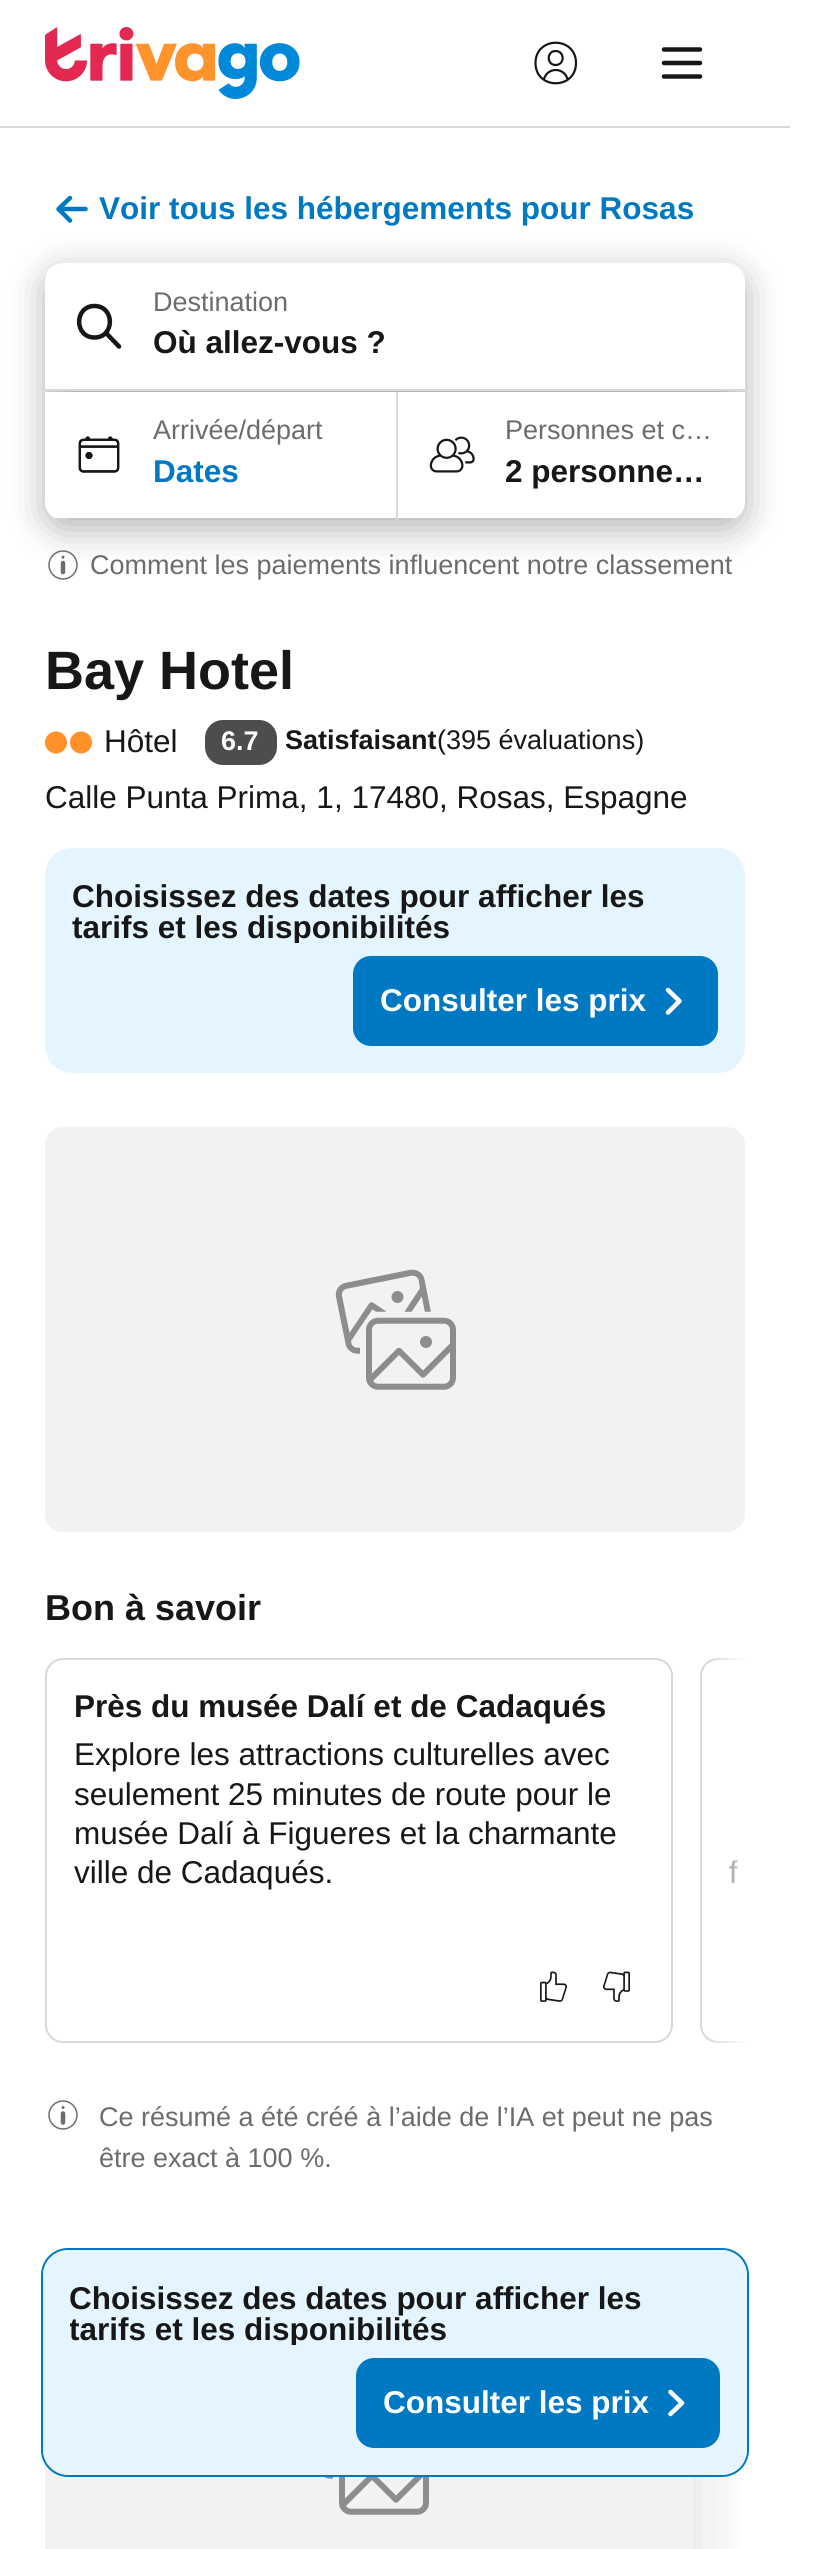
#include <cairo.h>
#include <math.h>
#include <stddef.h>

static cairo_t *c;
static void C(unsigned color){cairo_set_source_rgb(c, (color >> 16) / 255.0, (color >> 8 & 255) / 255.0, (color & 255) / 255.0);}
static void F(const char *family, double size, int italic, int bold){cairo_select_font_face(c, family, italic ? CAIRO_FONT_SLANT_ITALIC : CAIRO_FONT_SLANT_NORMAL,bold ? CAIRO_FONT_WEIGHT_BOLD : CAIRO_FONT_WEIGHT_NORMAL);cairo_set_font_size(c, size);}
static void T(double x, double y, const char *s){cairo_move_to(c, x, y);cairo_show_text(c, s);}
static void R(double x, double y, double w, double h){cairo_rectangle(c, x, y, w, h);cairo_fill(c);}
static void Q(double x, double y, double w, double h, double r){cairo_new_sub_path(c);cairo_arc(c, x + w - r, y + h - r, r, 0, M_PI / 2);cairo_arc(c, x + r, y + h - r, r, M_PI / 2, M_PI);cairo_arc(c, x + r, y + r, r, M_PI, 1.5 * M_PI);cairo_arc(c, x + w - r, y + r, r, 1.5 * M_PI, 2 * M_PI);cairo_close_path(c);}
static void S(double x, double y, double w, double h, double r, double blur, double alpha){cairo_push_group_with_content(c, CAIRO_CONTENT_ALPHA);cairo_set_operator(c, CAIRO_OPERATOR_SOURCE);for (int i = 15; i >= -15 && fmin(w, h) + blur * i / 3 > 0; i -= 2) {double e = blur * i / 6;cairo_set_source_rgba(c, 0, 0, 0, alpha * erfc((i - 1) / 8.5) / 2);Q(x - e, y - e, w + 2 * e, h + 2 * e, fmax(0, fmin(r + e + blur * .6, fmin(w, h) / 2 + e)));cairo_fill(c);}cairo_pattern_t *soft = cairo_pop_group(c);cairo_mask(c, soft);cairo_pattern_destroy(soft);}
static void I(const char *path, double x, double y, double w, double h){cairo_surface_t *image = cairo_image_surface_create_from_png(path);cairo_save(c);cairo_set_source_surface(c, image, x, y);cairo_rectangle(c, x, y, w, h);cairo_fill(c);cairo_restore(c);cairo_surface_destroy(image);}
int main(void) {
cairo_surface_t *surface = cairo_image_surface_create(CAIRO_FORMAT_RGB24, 823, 2549);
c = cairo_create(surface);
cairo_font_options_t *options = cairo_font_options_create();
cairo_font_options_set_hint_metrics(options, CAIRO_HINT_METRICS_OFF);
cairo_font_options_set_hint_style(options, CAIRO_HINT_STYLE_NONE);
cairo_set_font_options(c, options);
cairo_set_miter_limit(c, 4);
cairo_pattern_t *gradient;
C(0xffffff);
cairo_paint(c);
I("1.png",45,27,255,72);
cairo_new_path(c);
cairo_move_to(c,567.5,79);
cairo_curve_to(c,564,67,547.5,67,544,79);
cairo_move_to(c,576,63);
cairo_curve_to(c,576,36,535.5,36,535.5,63);
cairo_curve_to(c,535.5,90,576,90,576,63);
cairo_move_to(c,555.5,65);
cairo_curve_to(c,565,65,565,51,555.5,51);
cairo_curve_to(c,546.5,51,546.5,65,555.5,65);
C(0x171717);
cairo_set_line_width(c,2.2);
cairo_set_line_cap(c,CAIRO_LINE_CAP_ROUND);
cairo_set_line_join(c,CAIRO_LINE_JOIN_ROUND);
cairo_stroke(c);
cairo_new_path(c);
cairo_move_to(c,664,49.5);
cairo_line_to(c,700,49.5);
cairo_move_to(c,664,63);
cairo_line_to(c,700,63);
cairo_move_to(c,664,76.5);
cairo_line_to(c,700,76.5);
cairo_set_line_width(c,4.5);
cairo_set_line_join(c,CAIRO_LINE_JOIN_MITER);
cairo_stroke(c);
C(0xd9d8d6);
R(0,126,790,2);
cairo_new_path(c);
cairo_move_to(c,70,220.5);
cairo_line_to(c,58.5,209);
cairo_move_to(c,70,198);
cairo_line_to(c,58.5,209);
cairo_move_to(c,85.5,209);
cairo_line_to(c,58.5,209);
C(0x0079c2);
cairo_stroke(c);
F("Liberation Sans",31.5,0,1);
T(99,219,"Voir tous les hébergements pour Rosas");
C(0x000000);
S(45,272,700,257,18,18,.3);
C(0xd9d8d6);
R(45,389,700,2);
C(0xffffff);
cairo_new_path(c);
cairo_move_to(c,63,263);
cairo_line_to(c,727,263);
cairo_curve_to(c,737,263,745,271,745,281);
cairo_line_to(c,745,389);
cairo_line_to(c,45,389);
cairo_line_to(c,45,281);
cairo_curve_to(c,45,271,53,263,63,263);
cairo_close_path(c);
cairo_fill(c);
cairo_new_path(c);
cairo_move_to(c,94.5,306);
cairo_curve_to(c,74,306,74,337.5,94.5,337.5);
cairo_curve_to(c,115,337.5,115,306,94.5,306);
cairo_close_path(c);
cairo_move_to(c,119,346.5);
cairo_line_to(c,106,333);
C(0x171717);
cairo_stroke(c);
F("Liberation Sans",27,0,0);
C(0x6c6c6b);
T(153,311,"Destination");
F("Liberation Sans",31.5,0,1);
C(0x171717);
T(153,353,"Où allez-vous ?");
cairo_save(c);
Q(45,263,700,257,18);
cairo_clip(c);
C(0xffffff);
R(45,392,351,126);
cairo_restore(c);
I("2.png",78,436,42,37);
F("Liberation Sans",27,0,0);
C(0x6c6c6b);
T(153,439,"Arrivée/départ");
F("Liberation Sans",31.5,0,1);
C(0x0079c2);
T(153,482,"Dates");
C(0xd9d8d6);
R(396,392,2,128);
cairo_save(c);
Q(45,263,700,257,18);
cairo_clip(c);
C(0xffffff);
R(398,392,347,126);
cairo_restore(c);
I("3.png",429,436,46,37);
F("Liberation Sans",27,0,0);
C(0x6c6c6b);
T(505,439,"Personnes et c…");
F("Liberation Sans",31.5,0,1);
C(0x171717);
T(505,482,"2 personne…");
cairo_new_path(c);
cairo_arc(c,63,565,14,0,2 * M_PI);
C(0x6c6c6b);
cairo_set_line_width(c,1.5);
cairo_set_line_cap(c,CAIRO_LINE_CAP_BUTT);
cairo_stroke(c);
cairo_new_path(c);
cairo_move_to(c,63,563);
cairo_line_to(c,63,572);
cairo_set_line_width(c,4.5);
cairo_set_line_cap(c,CAIRO_LINE_CAP_ROUND);
cairo_stroke(c);
cairo_arc(c,63,557.2,1.5,0,2 * M_PI);
cairo_fill(c);
F("Liberation Sans",27,0,0);
T(90,574,"Comment les paiements influencent notre classement");
F("Liberation Sans",54,0,1);
C(0x171717);
T(45,689,"Bay Hotel");
C(0xff9128);
cairo_new_path(c);
cairo_arc(c,56,742.5,11,0,2 * M_PI);
cairo_fill(c);
cairo_arc(c,81,742.5,11,0,2 * M_PI);
cairo_fill(c);
F("Liberation Sans",31.5,0,0);
C(0x171717);
T(104,752,"Hôtel");
C(0x4d4d4c);
Q(205,720,72,45,18);
cairo_fill(c);
F("Liberation Sans",27,0,1);
C(0xffffff);
T(221,750,"6.7");
C(0x171717);
T(285,749,"Satisfaisant");
F("Liberation Sans",27,0,0);
T(437,749,"(395 évaluations)");
F("Liberation Sans",31.5,0,0);
T(45,808,"Calle Punta Prima, 1, 17480, Rosas, Espagne");
C(0xe5f5ff);
Q(45,848,700,225,27);
cairo_fill(c);
F("Liberation Sans",31.5,0,1);
C(0x171717);
T(72,907,"Choisissez des dates pour afficher les");
cairo_save(c);
cairo_rectangle(c,72,880,646,63);
cairo_clip(c);
T(72,938,"tarifs et les disponibilités");
cairo_restore(c);
C(0x0079c2);
Q(353,956,365,90,18);
cairo_fill(c);
C(0xffffff);
T(380,1011,"Consulter les prix");
cairo_new_path(c);
cairo_move_to(c,668,1012.5);
cairo_line_to(c,679.5,1001);
cairo_move_to(c,668,990);
cairo_line_to(c,679.5,1001);
cairo_stroke(c);
cairo_save(c);
cairo_rectangle(c,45,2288,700,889);
cairo_clip(c);
C(0x000000);
S(45,2333,648,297,27,18,.15);
cairo_restore(c);
I("7.png",45,2458,648,91);
cairo_save(c);
cairo_rectangle(c,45,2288,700,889);
cairo_clip(c);
C(0x000000);
S(729,2333,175,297,27,18,.15);
cairo_restore(c);
I("8.png",729,2458,16,91);
gradient = cairo_pattern_create_linear(745,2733,709,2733);
cairo_pattern_add_color_stop_rgba(gradient,0,1,1,1,1);
cairo_pattern_add_color_stop_rgba(gradient,1,1,1,1,0);
cairo_set_source(c,gradient);
cairo_pattern_destroy(gradient);
R(716,2458,29,91);
Q(42,2249,706,227,26);
C(0x0079c2);
cairo_set_line_width(c,2);
cairo_set_line_cap(c,CAIRO_LINE_CAP_BUTT);
cairo_stroke(c);
C(0xe5f5ff);
Q(43,2250,704,225,27);
cairo_fill(c);
C(0x171717);
T(69,2309,"Choisissez des dates pour afficher les");
cairo_save(c);
cairo_rectangle(c,70,2282,650,63);
cairo_clip(c);
T(69,2340,"tarifs et les disponibilités");
cairo_restore(c);
C(0x0079c2);
Q(356,2358,364,90,18);
cairo_fill(c);
C(0xffffff);
T(383,2413,"Consulter les prix");
cairo_new_path(c);
cairo_move_to(c,670.5,2414);
cairo_line_to(c,682,2403);
cairo_move_to(c,670.5,2392);
cairo_line_to(c,682,2403);
cairo_set_line_width(c,4.5);
cairo_set_line_cap(c,CAIRO_LINE_CAP_ROUND);
cairo_stroke(c);
C(0xf2f2f1);
Q(45,1127,700,405,18);
cairo_fill(c);
I("4.png",335,1269,121,121);
F("Liberation Sans",36,0,1);
C(0x171717);
T(45,1620,"Bon à savoir");
cairo_save(c);
cairo_rectangle(c,45,1658,700,385);
cairo_clip(c);
Q(701,1659,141,383,17);
C(0xd9d8d6);
cairo_set_line_width(c,2);
cairo_set_line_cap(c,CAIRO_LINE_CAP_BUTT);
cairo_stroke(c);
cairo_restore(c);
F("Liberation Sans",31.5,0,0);
T(729,1883,"f");
gradient = cairo_pattern_create_linear(745,1851,709,1851);
cairo_pattern_add_color_stop_rgba(gradient,0,1,1,1,1);
cairo_pattern_add_color_stop_rgba(gradient,1,1,1,1,0);
cairo_set_source(c,gradient);
cairo_pattern_destroy(gradient);
R(711,1658,34,385);
Q(46,1659,626,383,17);
C(0xd9d8d6);
cairo_set_line_width(c,2);
cairo_set_line_cap(c,CAIRO_LINE_CAP_BUTT);
cairo_stroke(c);
F("Liberation Sans",31.5,0,1);
C(0x171717);
T(74,1717,"Près du musée Dalí et de Cadaqués");
F("Liberation Sans",31.5,0,0);
T(74,1765,"Explore les attractions culturelles avec");
T(74,1805,"seulement 25 minutes de route pour le");
T(74,1844,"musée Dalí à Figueres et la charmante");
T(74,1883,"ville de Cadaqués.");
I("5.png",540,1971,27,31);
I("6.png",603,1971,27,31);
cairo_arc(c,63,2115,14,0,2 * M_PI);
C(0x6c6c6b);
cairo_set_line_width(c,1.5);
cairo_stroke(c);
cairo_new_path(c);
cairo_move_to(c,63,2113.5);
cairo_line_to(c,63,2122.5);
cairo_set_line_width(c,4.5);
cairo_set_line_cap(c,CAIRO_LINE_CAP_ROUND);
cairo_stroke(c);
cairo_arc(c,63,2107.5,1.5,0,2 * M_PI);
cairo_fill(c);
F("Liberation Sans",27,0,0);
T(99,2126,"Ce résumé a été créé à l’aide de l’IA et peut ne pas");
T(99,2167,"être exact à 100 %.");
cairo_surface_write_to_png(surface, "o.png");
cairo_font_options_destroy(options);
cairo_destroy(c);
cairo_surface_destroy(surface);
return 0;
}
